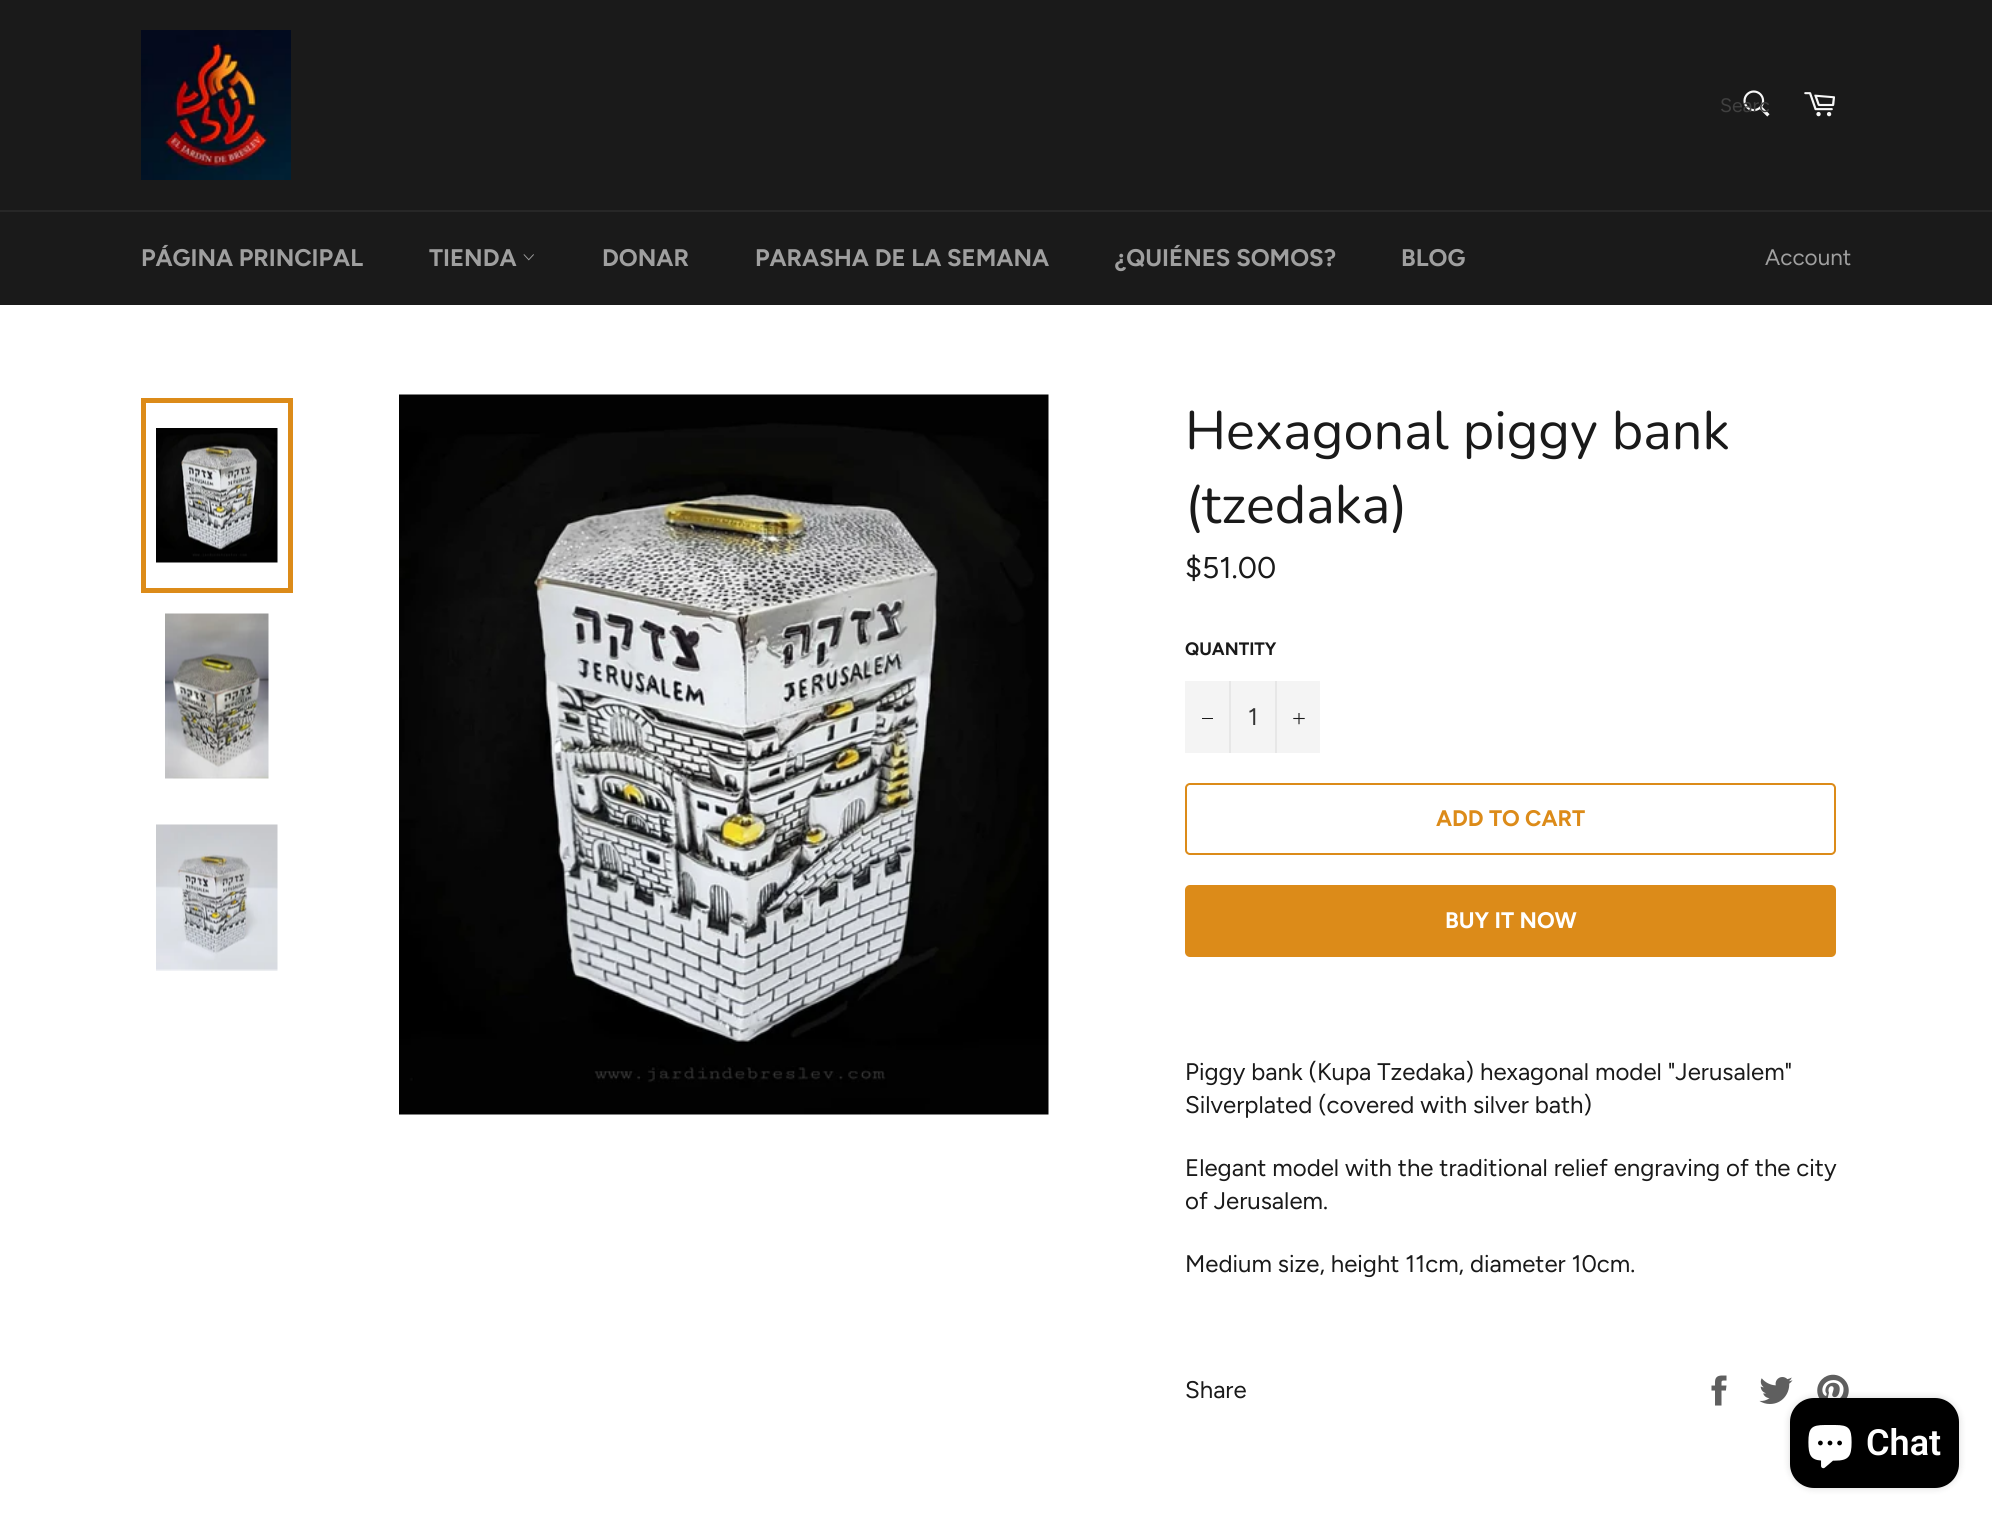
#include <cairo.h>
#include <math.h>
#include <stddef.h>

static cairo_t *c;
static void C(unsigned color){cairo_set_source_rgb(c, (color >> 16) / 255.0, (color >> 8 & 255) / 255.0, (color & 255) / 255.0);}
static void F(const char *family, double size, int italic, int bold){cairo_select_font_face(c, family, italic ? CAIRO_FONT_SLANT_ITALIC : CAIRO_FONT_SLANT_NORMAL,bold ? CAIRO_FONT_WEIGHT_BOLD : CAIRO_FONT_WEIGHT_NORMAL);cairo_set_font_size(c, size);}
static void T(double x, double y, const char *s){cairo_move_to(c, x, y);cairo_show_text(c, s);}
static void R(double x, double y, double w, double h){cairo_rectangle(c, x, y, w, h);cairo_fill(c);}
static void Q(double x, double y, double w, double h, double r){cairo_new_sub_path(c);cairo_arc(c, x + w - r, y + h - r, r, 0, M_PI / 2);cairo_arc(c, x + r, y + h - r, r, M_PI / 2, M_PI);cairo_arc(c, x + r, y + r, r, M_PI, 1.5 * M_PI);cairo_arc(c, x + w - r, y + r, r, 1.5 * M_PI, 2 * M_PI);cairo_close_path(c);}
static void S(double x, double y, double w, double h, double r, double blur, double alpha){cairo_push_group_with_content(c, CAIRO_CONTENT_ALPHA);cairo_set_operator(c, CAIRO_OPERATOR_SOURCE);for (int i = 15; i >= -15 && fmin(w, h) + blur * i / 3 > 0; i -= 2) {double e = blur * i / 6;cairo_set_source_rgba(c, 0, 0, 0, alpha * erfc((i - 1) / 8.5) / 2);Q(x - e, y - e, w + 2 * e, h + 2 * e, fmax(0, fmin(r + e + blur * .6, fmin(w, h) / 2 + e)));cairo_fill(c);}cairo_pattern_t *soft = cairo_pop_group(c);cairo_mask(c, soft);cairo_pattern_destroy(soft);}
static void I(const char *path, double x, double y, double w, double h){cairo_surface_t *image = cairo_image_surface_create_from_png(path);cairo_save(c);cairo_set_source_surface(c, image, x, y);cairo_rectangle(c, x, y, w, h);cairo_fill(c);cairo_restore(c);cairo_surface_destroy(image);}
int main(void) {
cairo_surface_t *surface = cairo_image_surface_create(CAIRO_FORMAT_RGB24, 1992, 1519);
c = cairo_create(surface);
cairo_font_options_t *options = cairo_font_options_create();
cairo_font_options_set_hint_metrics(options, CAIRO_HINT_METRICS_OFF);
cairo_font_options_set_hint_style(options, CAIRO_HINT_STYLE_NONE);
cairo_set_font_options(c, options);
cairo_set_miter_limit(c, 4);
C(0xffffff);
cairo_paint(c);
C(0x1a1a1a);
R(0,0,1992,305);
I("1.png",141,30,150,150);
I("2.png",1743,90,27,27);
cairo_save(c);
cairo_rectangle(c,1721,95,48,22);
cairo_clip(c);
F("Figtree",19.5,0,0);
C(0x404040);
T(1720,112,"Searc");
cairo_restore(c);
I("3.png",1804,92,31,25);
C(0x272727);
R(0,210,1992,2);
F("Figtree",24,0,1);
C(0x9f9f9f);
T(141,266,"PÁGINA PRINCIPAL");
T(429,266,"TIENDA");
I("4.png",523,254,11,7);
T(602,266,"DONAR");
T(755,266,"PARASHA DE LA SEMANA");
T(1115,266,"¿QUIÉNES SOMOS?");
T(1401,266,"BLOG");
F("Figtree",22.5,0,0);
T(1765,265,"Account");
I("5.png",156,428,122,135);
cairo_rectangle(c,143.5,400.5,147,190);
C(0xdc8b19);
cairo_set_line_width(c,5);
cairo_stroke(c);
I("6.png",165,613,104,166);
I("7.png",156,824,122,147);
I("8.png",399,394,650,721);
F("Nunito",54,0,0);
C(0x1a1a1a);
T(1185,449,"Hexagonal piggy bank");
T(1185,523,"(tzedaka)");
F("Figtree",30,0,0);
T(1185,578,"$51.00");
F("Figtree",18,0,1);
T(1185,655,"QUANTITY");
C(0xf4f4f4);
R(1185,681,135,72);
C(0xe7e7e7);
R(1229,681,2,72);
C(0x1a1a1a);
R(1202,718,11,1);
F("Figtree",24,0,0);
C(0x333333);
T(1248,725,"1");
C(0xe7e7e7);
R(1275,681,2,72);
I("9.png",1293,713,12,12);
Q(1186,784,649,70,4);
C(0xdc8b19);
cairo_set_line_width(c,2);
cairo_stroke(c);
F("Figtree",22.5,0,1);
T(1436,826,"ADD TO CART");
Q(1185,885,651,72,5);
cairo_fill(c);
C(0xffffff);
T(1445,928,"BUY IT NOW");
F("Figtree",24,0,0);
C(0x1a1a1a);
T(1185,1080,"Piggy bank (Kupa Tzedaka) hexagonal model \"Jerusalem\"");
T(1185,1113,"Silverplated (covered with silver bath)");
T(1185,1176,"Elegant model with the traditional relief engraving of the city");
T(1185,1209,"of Jerusalem.");
T(1185,1272,"Medium size, height 11cm, diameter 10cm.");
T(1185,1398,"Share");
I("10.png",1711,1375,16,31);
I("11.png",1759,1377,34,27);
I("12.png",1817,1374,32,24);
C(0x000000);
S(1790,1398,169,90,24,4,.15);
C(0x000000);
Q(1790,1398,169,90,24);
cairo_fill(c);
I("13.png",1808,1425,44,44);
F("Roboto SemiBold",36,0,0);
C(0xffffff);
T(1866,1455,"Chat");
cairo_surface_write_to_png(surface, "o.png");
cairo_font_options_destroy(options);
cairo_destroy(c);
cairo_surface_destroy(surface);
return 0;
}
